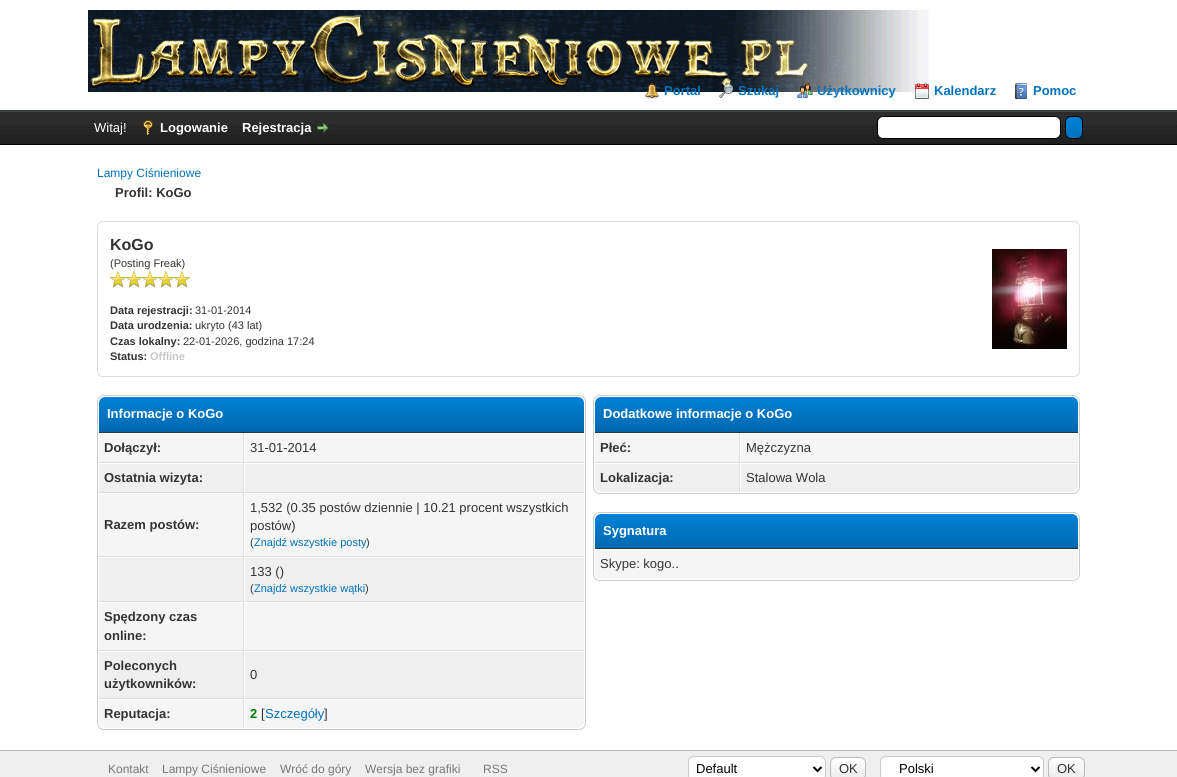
#include <cairo.h>
#include <math.h>
#include <stddef.h>

static cairo_t *c;
static void C(unsigned color){cairo_set_source_rgb(c, (color >> 16) / 255.0, (color >> 8 & 255) / 255.0, (color & 255) / 255.0);}
static void F(const char *family, double size, int italic, int bold){cairo_select_font_face(c, family, italic ? CAIRO_FONT_SLANT_ITALIC : CAIRO_FONT_SLANT_NORMAL,bold ? CAIRO_FONT_WEIGHT_BOLD : CAIRO_FONT_WEIGHT_NORMAL);cairo_set_font_size(c, size);}
static void T(double x, double y, const char *s){cairo_move_to(c, x, y);cairo_show_text(c, s);}
static void R(double x, double y, double w, double h){cairo_rectangle(c, x, y, w, h);cairo_fill(c);}
static void Q(double x, double y, double w, double h, double r){cairo_new_sub_path(c);cairo_arc(c, x + w - r, y + h - r, r, 0, M_PI / 2);cairo_arc(c, x + r, y + h - r, r, M_PI / 2, M_PI);cairo_arc(c, x + r, y + r, r, M_PI, 1.5 * M_PI);cairo_arc(c, x + w - r, y + r, r, 1.5 * M_PI, 2 * M_PI);cairo_close_path(c);}
static void I(const char *path, double x, double y, double w, double h){cairo_surface_t *image = cairo_image_surface_create_from_png(path);cairo_save(c);cairo_set_source_surface(c, image, x, y);cairo_rectangle(c, x, y, w, h);cairo_fill(c);cairo_restore(c);cairo_surface_destroy(image);}
int main(void) {
cairo_surface_t *surface = cairo_image_surface_create(CAIRO_FORMAT_RGB24, 1177, 777);
c = cairo_create(surface);
cairo_font_options_t *options = cairo_font_options_create();
cairo_font_options_set_hint_metrics(options, CAIRO_HINT_METRICS_OFF);
cairo_font_options_set_hint_style(options, CAIRO_HINT_STYLE_NONE);
cairo_set_font_options(c, options);
cairo_set_miter_limit(c, 4);
C(0xffffff);
cairo_paint(c);
C(0x263c30);
R(0,110,1177,1);
I("1.png",88,10,841,82);
I("2.png",645,83,14,16);
F("Liberation Sans",13,0,1);
C(0x0072bc);
T(664,95,"Portal");
I("3.png",719,83,15,15);
T(738,95,"Szukaj");
I("4.png",797,83,16,15);
T(817,95,"Użytkownicy");
I("5.png",915,83,14,16);
T(934,95,"Kalendarz");
I("6.png",1015,83,12,16);
T(1033,95,"Pomoc");
I("7.png",0,112,1177,32);
C(0x444444);
R(0,111,1177,1);
C(0x000000);
R(0,144,1177,1);
F("Liberation Sans",13,0,0);
C(0xffffff);
T(94,132,"Witaj!");
I("8.png",143,120,10,15);
F("Liberation Sans",13,0,1);
T(160,132,"Logowanie");
T(242,132,"Rejestracja");
I("9.png",317,123,12,10);
Q(877.5,116.5,183,22,5.5);
cairo_fill_preserve(c);
C(0x000000);
cairo_set_line_width(c,1);
cairo_stroke(c);
I("10.png",1065,117,18,22);
Q(1065.5,116.5,17,22,5.5);
cairo_stroke(c);
F("Liberation Sans",12,0,0);
C(0x0072bc);
T(97,177,"Lampy Ciśnieniowe");
F("Liberation Sans",13,0,1);
C(0x333333);
T(115,197,"Profil: KoGo");
Q(97.5,221.5,982,155,5.5);
C(0xdddddd);
cairo_stroke(c);
F("Liberation Sans",16,0,1);
C(0x333333);
T(110,250,"KoGo");
F("Liberation Sans",11,0,0);
T(110,267,"(Posting Freak)");
I("11.png",110,271,16,16);
I("11.png",126,271,16,16);
I("11.png",142,271,16,16);
I("11.png",158,271,16,16);
I("11.png",174,271,16,16);
F("Liberation Sans",11,0,1);
T(110,314,"Data rejestracji:");
F("Liberation Sans",11,0,0);
T(195,314,"31-01-2014");
F("Liberation Sans",11,0,1);
T(110,329,"Data urodzenia:");
F("Liberation Sans",11,0,0);
T(195,329,"ukryto (43 lat)");
F("Liberation Sans",11,0,1);
T(110,345,"Czas lokalny:");
F("Liberation Sans",11,0,0);
T(183,345,"22-01-2026, godzina 17:24");
F("Liberation Sans",11,0,1);
T(110,360,"Status:");
C(0xc7c7c7);
T(150,360,"Offline");
I("12.png",992,249,75,100);
Q(97.5,395.5,488,334,6.5);
C(0xcccccc);
cairo_stroke(c);
I("13.png",99,397,485,35);
C(0x263c30);
R(99,432,485,1);
F("Liberation Sans",13,0,1);
C(0xffffff);
T(107,418,"Informacje o KoGo");
C(0xf5f5f5);
R(99,434,144,28);
C(0xdddddd);
R(243,433,1,266);
R(99,462,485,1);
C(0x333333);
T(104,452,"Dołączył:");
C(0xf5f5f5);
R(245,434,339,28);
C(0xffffff);
R(244,462,1,1);
F("Liberation Sans",13,0,0);
C(0x333333);
T(250,452,"31-01-2014");
C(0xefefef);
R(99,464,144,28);
C(0xdddddd);
R(99,492,485,1);
F("Liberation Sans",13,0,1);
C(0x333333);
T(104,482,"Ostatnia wizyta:");
C(0xefefef);
R(245,464,339,28);
C(0xffffff);
R(244,492,1,1);
C(0xf5f5f5);
R(99,494,144,62);
C(0xdddddd);
R(99,556,485,1);
C(0x333333);
T(104,529,"Razem postów:");
C(0xf5f5f5);
R(245,494,339,62);
C(0xffffff);
R(244,556,1,1);
F("Liberation Sans",13,0,0);
C(0x333333);
T(250,512,"1,532 (0.35 postów dziennie | 10.21 procent wszystkich");
T(250,530,"postów)");
F("Liberation Sans",11,0,0);
T(250,546,"(");
C(0x0072bc);
T(254,546,"Znajdź wszystkie posty");
C(0x333333);
T(366,546,")");
C(0xefefef);
R(99,558,144,43);
C(0xdddddd);
R(99,601,485,1);
C(0xefefef);
R(245,558,339,43);
C(0xffffff);
R(244,601,1,1);
F("Liberation Sans",13,0,0);
C(0x333333);
T(250,576,"133 ()");
F("Liberation Sans",11,0,0);
T(250,592,"(");
C(0x0072bc);
T(254,592,"Znajdź wszystkie wątki");
C(0x333333);
T(365,592,")");
C(0xf5f5f5);
R(99,603,144,47);
C(0xdddddd);
R(99,650,485,1);
F("Liberation Sans",13,0,1);
C(0x333333);
T(104,621,"Spędzony czas");
T(104,640,"online:");
C(0xf5f5f5);
R(245,603,339,47);
C(0xffffff);
R(244,650,1,1);
C(0xefefef);
R(99,652,144,46);
C(0xdddddd);
R(99,698,485,1);
C(0x333333);
T(104,670,"Poleconych");
T(104,688,"użytkowników:");
C(0xefefef);
R(245,652,339,46);
C(0xffffff);
R(244,698,1,1);
F("Liberation Sans",13,0,0);
C(0x333333);
T(250,679,"0");
C(0xf5f5f5);
cairo_new_path(c);
cairo_move_to(c,99,699);
cairo_line_to(c,244,699);
cairo_line_to(c,244,728);
cairo_line_to(c,105,728);
cairo_curve_to(c,101.5,728,99,725.5,99,722);
cairo_close_path(c);
cairo_fill(c);
C(0xffffff);
cairo_new_path(c);
cairo_move_to(c,99,699);
cairo_line_to(c,99,700);
cairo_line_to(c,243,700);
cairo_line_to(c,244,699);
cairo_close_path(c);
cairo_fill(c);
C(0xdddddd);
cairo_new_path(c);
cairo_move_to(c,244,699);
cairo_line_to(c,243,700);
cairo_line_to(c,243,728);
cairo_line_to(c,244,728);
cairo_close_path(c);
cairo_fill(c);
F("Liberation Sans",13,0,1);
C(0x333333);
T(104,718,"Reputacja:");
C(0xf5f5f5);
cairo_new_path(c);
cairo_move_to(c,244,699);
cairo_line_to(c,584,699);
cairo_line_to(c,584,722);
cairo_curve_to(c,584,725.5,581.5,728,578,728);
cairo_line_to(c,244,728);
cairo_close_path(c);
cairo_fill(c);
C(0xffffff);
R(244,699,340,1);
R(244,699,1,29);
C(0x008000);
T(250,718,"2");
F("Liberation Sans",13,0,0);
C(0x333333);
T(261,718,"[");
C(0x0072bc);
T(265,718,"Szczegóły");
C(0x333333);
T(324,718,"]");
Q(593.5,395.5,486,98,6.5);
C(0xcccccc);
cairo_stroke(c);
I("14.png",595,397,483,35);
C(0x263c30);
R(595,432,483,1);
F("Liberation Sans",13,0,1);
C(0xffffff);
T(603,418,"Dodatkowe informacje o KoGo");
C(0xf5f5f5);
R(595,434,144,28);
C(0xdddddd);
R(739,433,1,30);
R(595,462,483,1);
C(0x333333);
T(600,452,"Płeć:");
C(0xf5f5f5);
R(741,434,337,28);
C(0xffffff);
R(740,462,1,1);
F("Liberation Sans",13,0,0);
C(0x333333);
T(746,452,"Mężczyzna");
C(0xefefef);
cairo_new_path(c);
cairo_move_to(c,595,463);
cairo_line_to(c,740,463);
cairo_line_to(c,740,492);
cairo_line_to(c,601,492);
cairo_curve_to(c,597.5,492,595,489.5,595,486);
cairo_close_path(c);
cairo_fill(c);
C(0xffffff);
cairo_new_path(c);
cairo_move_to(c,595,463);
cairo_line_to(c,595,464);
cairo_line_to(c,739,464);
cairo_line_to(c,740,463);
cairo_close_path(c);
cairo_fill(c);
C(0xdddddd);
cairo_new_path(c);
cairo_move_to(c,740,463);
cairo_line_to(c,739,464);
cairo_line_to(c,739,492);
cairo_line_to(c,740,492);
cairo_close_path(c);
cairo_fill(c);
F("Liberation Sans",13,0,1);
C(0x333333);
T(600,482,"Lokalizacja:");
C(0xefefef);
cairo_new_path(c);
cairo_move_to(c,740,463);
cairo_line_to(c,1078,463);
cairo_line_to(c,1078,486);
cairo_curve_to(c,1078,489.5,1075.5,492,1072,492);
cairo_line_to(c,740,492);
cairo_close_path(c);
cairo_fill(c);
C(0xffffff);
R(740,463,338,1);
R(740,463,1,29);
F("Liberation Sans",13,0,0);
C(0x333333);
T(746,482,"Stalowa Wola");
Q(593.5,512.5,486,68,6.5);
C(0xcccccc);
cairo_stroke(c);
I("15.png",595,514,483,34);
C(0x263c30);
R(595,548,483,1);
F("Liberation Sans",13,0,1);
C(0xffffff);
T(603,535,"Sygnatura");
C(0xf5f5f5);
cairo_new_path(c);
cairo_move_to(c,595,549);
cairo_line_to(c,1078,549);
cairo_line_to(c,1078,573);
cairo_curve_to(c,1078,576.5,1075.5,579,1072,579);
cairo_line_to(c,601,579);
cairo_curve_to(c,597.5,579,595,576.5,595,573);
cairo_close_path(c);
cairo_fill(c);
C(0xffffff);
R(595,549,483,1);
F("Liberation Sans",13,0,0);
C(0x333333);
T(600,568,"Skype: kogo..");
C(0xefefef);
R(0,751,1177,26);
C(0xbbbbbb);
R(0,750,1177,1);
F("Liberation Sans",12,0,0);
C(0x777777);
T(108,773,"Kontakt");
T(162,773,"Lampy Ciśnieniowe");
T(280,773,"Wróć do góry");
T(365,773,"Wersja bez grafiki");
T(483,773,"RSS");
C(0xffffff);
Q(688.5,756.5,137,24,5.5);
cairo_fill_preserve(c);
C(0xcccccc);
cairo_stroke(c);
cairo_new_path(c);
cairo_move_to(c,813.5,767);
cairo_line_to(c,817.5,771);
cairo_line_to(c,821.5,767);
C(0x000000);
cairo_set_line_width(c,2);
cairo_stroke(c);
F("Liberation Sans",13,0,0);
T(696,773,"Default");
I("16.png",830,758,36,15);
Q(830.5,757.5,35,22,5.5);
C(0xbbbbbb);
cairo_set_line_width(c,1);
cairo_stroke(c);
C(0x333333);
T(839,773,"OK");
C(0xffffff);
Q(880.5,756.5,163,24,5.5);
cairo_fill_preserve(c);
C(0xcccccc);
cairo_stroke(c);
cairo_new_path(c);
cairo_move_to(c,1031.5,767);
cairo_line_to(c,1035.5,771);
cairo_line_to(c,1039.5,767);
C(0x000000);
cairo_set_line_width(c,2);
cairo_stroke(c);
T(899,773,"Polski");
I("17.png",1048,758,37,15);
Q(1048.5,757.5,36,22,5.5);
C(0xbbbbbb);
cairo_set_line_width(c,1);
cairo_stroke(c);
C(0x333333);
T(1057,773,"OK");
cairo_surface_write_to_png(surface, "o.png");
cairo_font_options_destroy(options);
cairo_destroy(c);
cairo_surface_destroy(surface);
return 0;
}
